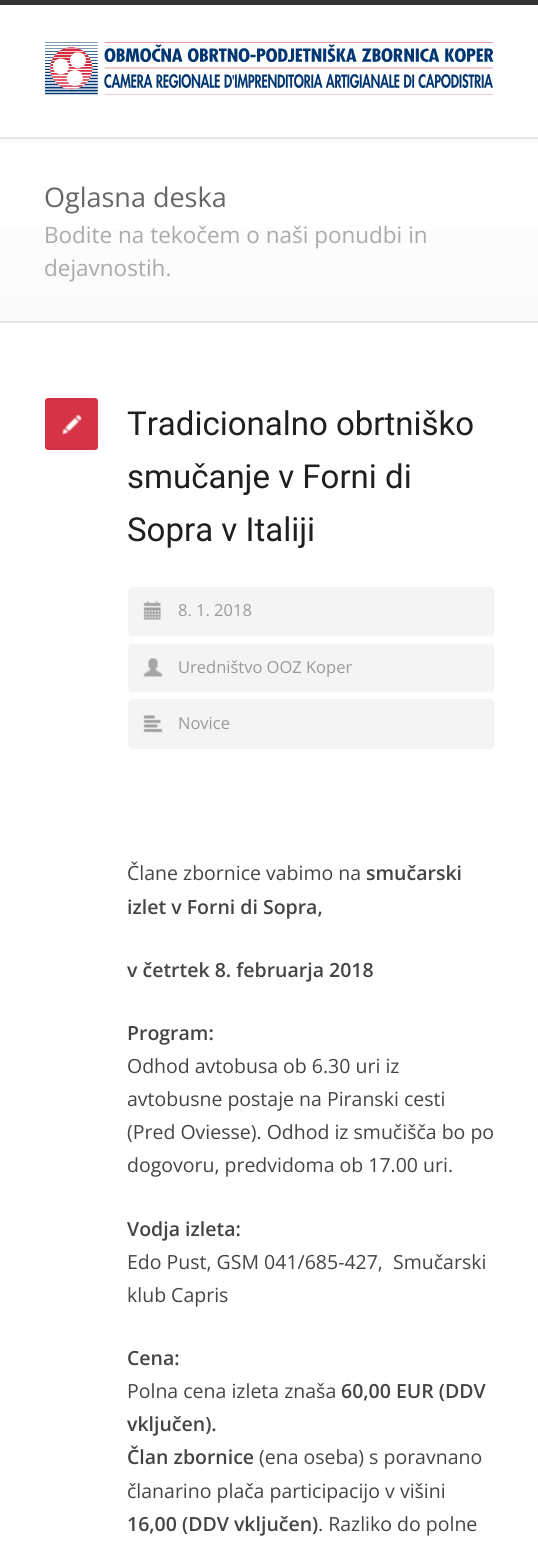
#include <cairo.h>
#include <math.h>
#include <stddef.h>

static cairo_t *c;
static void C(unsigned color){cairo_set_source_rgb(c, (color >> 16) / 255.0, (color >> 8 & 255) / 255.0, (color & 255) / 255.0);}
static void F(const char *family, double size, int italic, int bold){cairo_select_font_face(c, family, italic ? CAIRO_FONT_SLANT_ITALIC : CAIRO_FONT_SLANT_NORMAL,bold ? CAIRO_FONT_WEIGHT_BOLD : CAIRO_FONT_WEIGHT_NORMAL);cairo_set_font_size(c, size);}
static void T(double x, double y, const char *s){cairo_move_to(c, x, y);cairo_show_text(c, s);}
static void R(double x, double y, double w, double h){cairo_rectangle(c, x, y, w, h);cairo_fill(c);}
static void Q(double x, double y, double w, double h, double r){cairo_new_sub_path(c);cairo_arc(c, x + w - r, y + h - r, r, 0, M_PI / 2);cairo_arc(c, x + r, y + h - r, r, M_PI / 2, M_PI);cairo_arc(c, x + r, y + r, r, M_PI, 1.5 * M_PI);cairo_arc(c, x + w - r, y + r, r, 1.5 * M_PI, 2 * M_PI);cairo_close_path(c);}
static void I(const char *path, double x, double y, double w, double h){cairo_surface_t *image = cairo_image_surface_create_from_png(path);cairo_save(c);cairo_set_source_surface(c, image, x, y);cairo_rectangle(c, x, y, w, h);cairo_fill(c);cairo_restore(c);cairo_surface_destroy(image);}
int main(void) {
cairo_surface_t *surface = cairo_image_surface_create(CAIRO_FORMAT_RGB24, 538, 1560);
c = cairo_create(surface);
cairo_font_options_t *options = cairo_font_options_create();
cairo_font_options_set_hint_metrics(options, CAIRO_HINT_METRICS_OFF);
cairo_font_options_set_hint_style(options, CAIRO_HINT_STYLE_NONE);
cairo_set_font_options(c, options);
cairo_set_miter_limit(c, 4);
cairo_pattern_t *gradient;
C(0xffffff);
cairo_paint(c);
C(0x333333);
R(0,0,538,5);
I("1.png",45,42,449,53);
gradient = cairo_pattern_create_linear(269,321,269,138);
cairo_pattern_add_color_stop_rgba(gradient,0,0.98,0.98,0.98,1);
cairo_pattern_add_color_stop_rgba(gradient,1,1,1,1,1);
cairo_set_source(c,gradient);
cairo_pattern_destroy(gradient);
R(0,230,538,91);
C(0xfafafa);
R(0,139,538,4);
C(0xe4e4e4);
R(0,137,538,2);
R(0,321,538,2);
F("Open Sans",27,0,0);
C(0x666666);
T(44,207,"Oglasna deska");
F("Open Sans",22.5,0,0);
C(0xaaaaaa);
T(44,243,"Bodite na tekočem o naši ponudbi in");
T(44,276,"dejavnostih.");
C(0xd63346);
Q(45,398,53,52,3);
cairo_fill(c);
I("2.png",61,414,21,21);
F("Roboto",33,0,0);
C(0x1f1f1f);
T(127,435,"Tradicionalno obrtniško");
T(127,488,"smučanje v Forni di");
T(127,541,"Sopra v Italiji");
C(0xf4f4f4);
Q(128,587,367,49,5);
cairo_fill(c);
I("3.png",143,601,18,19);
F("Open Sans",16.5,0,0);
C(0x999999);
T(178,616,"8. 1. 2018");
C(0xf4f4f4);
Q(128,644,367,48,5);
cairo_fill(c);
I("4.png",143,658,20,19);
C(0x999999);
T(178,673,"Uredništvo OOZ Koper");
C(0xf4f4f4);
Q(128,699,367,50,5);
cairo_fill(c);
I("5.png",143,715,20,18);
C(0x999999);
T(178,729,"Novice");
F("Open Sans",19.5,0,0);
C(0x444444);
T(127,880,"Člane zbornice vabimo na");
F("Open Sans SemiBold",19.5,0,0);
T(366,880,"smučarski");
T(127,914,"izlet v Forni di Sopra,");
T(127,977,"v četrtek 8. februarja 2018");
T(127,1040,"Program:");
F("Open Sans",19.5,0,0);
T(127,1073,"Odhod avtobusa ob 6.30 uri iz");
T(127,1106,"avtobusne postaje na Piranski cesti");
T(127,1139,"(Pred Oviesse). Odhod iz smučišča bo po");
T(127,1172,"dogovoru, predvidoma ob 17.00 uri.");
F("Open Sans SemiBold",19.5,0,0);
T(127,1236,"Vodja izleta:");
F("Open Sans",19.5,0,0);
T(127,1269,"Edo Pust, GSM 041/685-427,  Smučarski");
T(127,1302,"klub Capris");
F("Open Sans SemiBold",19.5,0,0);
T(127,1365,"Cena:");
F("Open Sans",19.5,0,0);
T(127,1398,"Polna cena izleta znaša");
F("Open Sans SemiBold",19.5,0,0);
T(341,1398,"60,00 EUR (DDV");
T(127,1431,"vključen).");
T(127,1464,"Član zbornice");
F("Open Sans",19.5,0,0);
T(259,1464,"(ena oseba) s poravnano");
T(127,1498,"članarino plača participacijo v višini");
F("Open Sans SemiBold",19.5,0,0);
T(127,1531,"16,00 (DDV vključen)");
F("Open Sans",19.5,0,0);
T(318,1531,". Razliko do polne");
cairo_surface_write_to_png(surface, "o.png");
cairo_font_options_destroy(options);
cairo_destroy(c);
cairo_surface_destroy(surface);
return 0;
}
